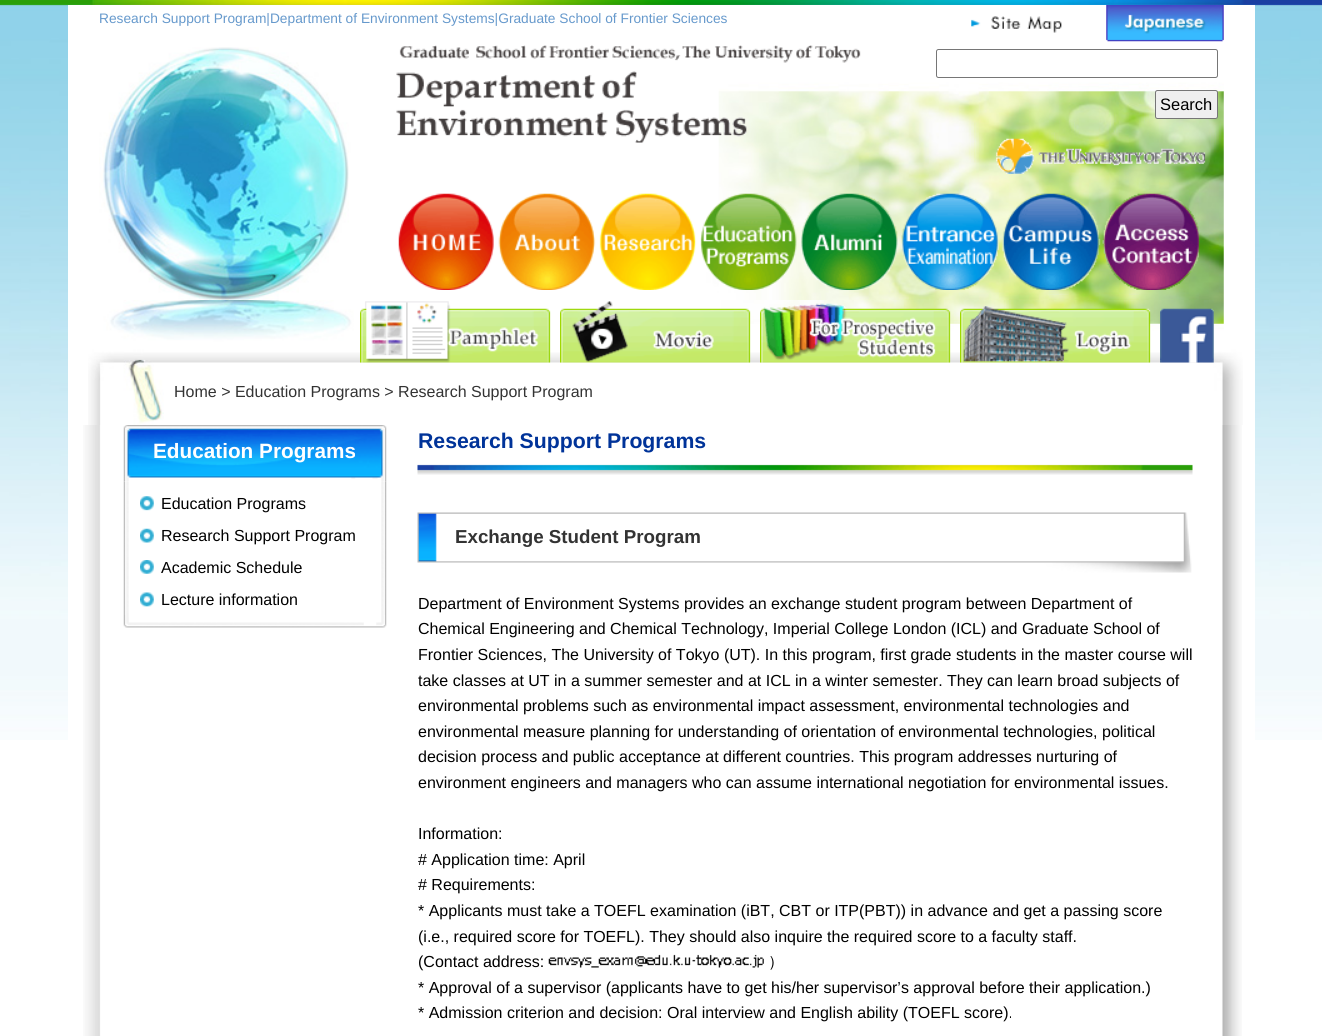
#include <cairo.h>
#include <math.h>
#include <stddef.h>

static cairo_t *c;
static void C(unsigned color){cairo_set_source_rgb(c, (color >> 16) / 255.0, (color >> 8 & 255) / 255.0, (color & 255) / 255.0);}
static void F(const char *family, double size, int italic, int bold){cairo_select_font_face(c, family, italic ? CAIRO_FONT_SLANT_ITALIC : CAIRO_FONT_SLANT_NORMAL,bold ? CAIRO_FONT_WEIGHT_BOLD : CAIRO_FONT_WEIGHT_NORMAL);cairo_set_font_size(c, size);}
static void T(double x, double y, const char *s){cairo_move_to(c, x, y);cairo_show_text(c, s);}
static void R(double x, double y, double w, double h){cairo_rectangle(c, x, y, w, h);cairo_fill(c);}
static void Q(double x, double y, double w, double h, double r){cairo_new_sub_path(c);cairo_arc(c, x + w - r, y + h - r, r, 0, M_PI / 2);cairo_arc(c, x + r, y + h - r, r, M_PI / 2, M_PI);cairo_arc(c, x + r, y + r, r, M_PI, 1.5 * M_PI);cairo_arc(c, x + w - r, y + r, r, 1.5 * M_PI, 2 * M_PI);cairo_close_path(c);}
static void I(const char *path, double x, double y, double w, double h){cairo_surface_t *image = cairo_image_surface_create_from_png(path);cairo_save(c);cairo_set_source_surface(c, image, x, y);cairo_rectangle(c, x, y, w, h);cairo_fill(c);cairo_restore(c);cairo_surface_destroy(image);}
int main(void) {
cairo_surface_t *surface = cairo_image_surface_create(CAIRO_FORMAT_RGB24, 1322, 1036);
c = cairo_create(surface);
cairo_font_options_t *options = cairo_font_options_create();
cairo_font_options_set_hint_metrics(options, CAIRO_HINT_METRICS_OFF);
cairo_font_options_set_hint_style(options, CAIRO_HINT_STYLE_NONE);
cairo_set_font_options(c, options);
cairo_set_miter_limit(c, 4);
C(0xffffff);
cairo_paint(c);
I("1.png",0,0,1322,740);
C(0xffffff);
R(68,5,1187,735);
F("Liberation Sans",13.75,0,0);
C(0x6699cc);
T(99,23,"Research Support Program|Department of Environment Systems|Graduate School of Frontier Sciences");
I("2.png",971,16,91,17);
I("3.png",1106,5,118,37);
I("4.png",99,47,1125,253);
I("5.png",396,45,465,98);
Q(936.5,49.5,281,28,2);
C(0x767676);
cairo_set_line_width(c,1);
cairo_stroke(c);
C(0xefefef);
Q(1155.5,90.5,62,28,2);
cairo_fill_preserve(c);
C(0x767676);
cairo_stroke(c);
F("Liberation Sans",16.5,0,0);
C(0x000000);
T(1160,110,"Search");
I("6.png",996,138,210,36);
I("7.png",398,193,96,97);
I("8.png",498,193,98,97);
I("9.png",599,193,98,97);
I("10.png",700,193,97,97);
I("11.png",801,193,97,97);
I("12.png",901,193,98,97);
I("13.png",1002,193,97,97);
I("14.png",1098,193,101,97);
I("15.png",88,300,1155,125);
I("16.png",360,301,191,62);
I("17.png",560,301,191,62);
I("18.png",760,303,191,60);
I("19.png",960,306,191,57);
I("20.png",1160,308,54,55);
F("Liberation Sans",16,0,0);
C(0x333333);
T(174,397,"Home > Education Programs > Research Support Program");
I("21.png",83,425,1159,611);
I("22.png",123,425,264,57);
F("Liberation Sans",20.75,0,1);
C(0xffffff);
T(153,458,"Education Programs");
I("23.png",123,481,264,134);
I("24.png",140,496,14,15);
F("Liberation Sans",16,0,0);
C(0x000000);
T(161,509,"Education Programs");
I("25.png",140,528,14,15);
T(161,541,"Research Support Program");
I("26.png",140,560,14,14);
T(161,573,"Academic Schedule");
I("27.png",140,592,14,15);
T(161,605,"Lecture information");
I("28.png",123,615,264,13);
I("29.png",417,464,776,11);
F("Liberation Sans",21.25,0,1);
C(0x003399);
T(418,448,"Research Support Programs");
I("30.png",417,512,775,61);
F("Liberation Sans",18.75,0,1);
C(0x333333);
T(455,543,"Exchange Student Program");
F("Liberation Sans",16,0,0);
C(0x000000);
T(418,609,"Department of Environment Systems provides an exchange student program between Department of");
T(418,634,"Chemical Engineering and Chemical Technology, Imperial College London (ICL) and Graduate School of");
T(418,660,"Frontier Sciences, The University of Tokyo (UT). In this program, first grade students in the master course will");
T(418,686,"take classes at UT in a summer semester and at ICL in a winter semester. They can learn broad subjects of");
T(418,711,"environmental problems such as environmental impact assessment, environmental technologies and");
T(418,737,"environmental measure planning for understanding of orientation of environmental technologies, political");
T(418,762,"decision process and public acceptance at different countries. This program addresses nurturing of");
T(418,788,"environment engineers and managers who can assume international negotiation for environmental issues.");
T(418,839,"Information:");
T(418,865,"# Application time: April");
T(418,890,"# Requirements:");
T(418,916,"* Applicants must take a TOEFL examination (iBT, CBT or ITP(PBT)) in advance and get a passing score");
T(418,942,"(i.e., required score for TOEFL). They should also inquire the required score to a faculty staff.");
T(418,967,"(Contact address:");
I("31.png",548,954,216,14);
F("WenQuanYi Zen Hei Medium",16,0,0);
T(768,967,"）");
F("Liberation Sans",16,0,0);
T(418,993,"* Approval of a supervisor (applicants have to get his/her supervisor’s approval before their application.)");
T(418,1018,"* Admission criterion and decision: Oral interview and English ability (TOEFL score).");
cairo_surface_write_to_png(surface, "o.png");
cairo_font_options_destroy(options);
cairo_destroy(c);
cairo_surface_destroy(surface);
return 0;
}
